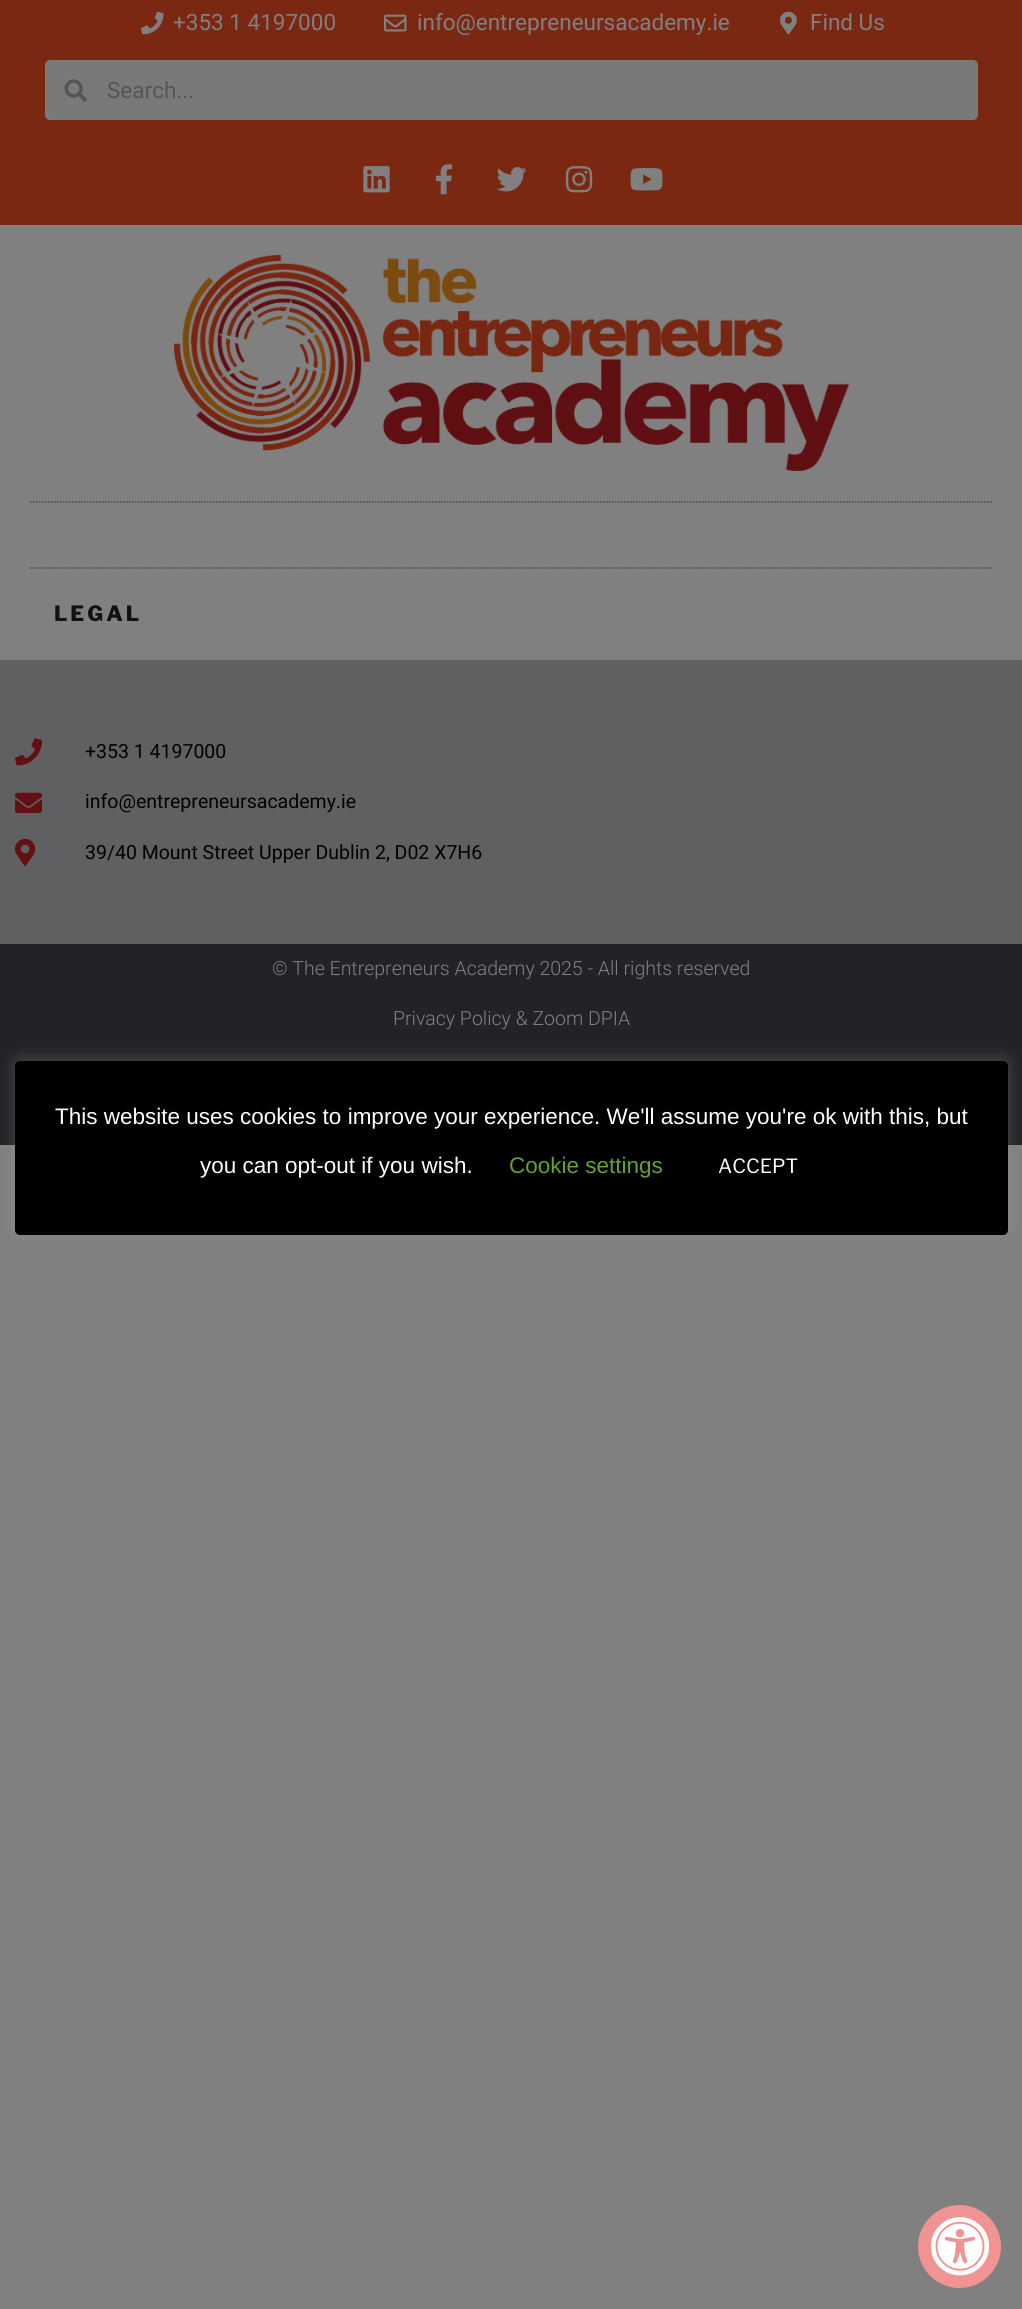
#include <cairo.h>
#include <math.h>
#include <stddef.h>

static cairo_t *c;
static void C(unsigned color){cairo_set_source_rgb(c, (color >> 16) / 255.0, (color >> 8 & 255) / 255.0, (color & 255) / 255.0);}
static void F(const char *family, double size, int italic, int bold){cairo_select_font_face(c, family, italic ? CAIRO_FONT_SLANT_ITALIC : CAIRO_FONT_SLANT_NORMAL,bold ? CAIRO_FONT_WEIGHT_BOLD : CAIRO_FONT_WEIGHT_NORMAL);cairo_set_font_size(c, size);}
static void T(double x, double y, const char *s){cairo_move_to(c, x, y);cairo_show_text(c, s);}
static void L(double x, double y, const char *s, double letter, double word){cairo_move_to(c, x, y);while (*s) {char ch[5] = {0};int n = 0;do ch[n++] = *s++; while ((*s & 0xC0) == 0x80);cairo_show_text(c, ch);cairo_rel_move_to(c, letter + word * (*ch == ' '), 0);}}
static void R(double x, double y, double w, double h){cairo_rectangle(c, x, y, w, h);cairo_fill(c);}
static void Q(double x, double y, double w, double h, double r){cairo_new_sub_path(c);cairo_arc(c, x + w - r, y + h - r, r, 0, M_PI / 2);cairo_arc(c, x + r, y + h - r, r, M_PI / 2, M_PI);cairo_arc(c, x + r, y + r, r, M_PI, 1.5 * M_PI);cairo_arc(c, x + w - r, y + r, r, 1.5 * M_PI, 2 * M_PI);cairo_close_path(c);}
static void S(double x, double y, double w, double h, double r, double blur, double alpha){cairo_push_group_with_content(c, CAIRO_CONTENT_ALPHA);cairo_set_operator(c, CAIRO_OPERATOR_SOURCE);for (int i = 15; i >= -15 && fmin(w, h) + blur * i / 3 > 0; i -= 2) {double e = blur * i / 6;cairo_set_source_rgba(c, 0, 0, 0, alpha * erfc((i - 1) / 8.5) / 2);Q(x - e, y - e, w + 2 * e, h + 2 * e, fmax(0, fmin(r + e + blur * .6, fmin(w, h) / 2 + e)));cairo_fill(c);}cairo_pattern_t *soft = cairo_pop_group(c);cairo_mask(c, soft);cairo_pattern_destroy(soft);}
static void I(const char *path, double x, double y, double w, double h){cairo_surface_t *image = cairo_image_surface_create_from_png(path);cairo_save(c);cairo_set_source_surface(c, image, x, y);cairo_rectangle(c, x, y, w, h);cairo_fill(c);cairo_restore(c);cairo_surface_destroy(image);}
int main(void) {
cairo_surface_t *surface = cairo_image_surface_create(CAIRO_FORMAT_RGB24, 1022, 2309);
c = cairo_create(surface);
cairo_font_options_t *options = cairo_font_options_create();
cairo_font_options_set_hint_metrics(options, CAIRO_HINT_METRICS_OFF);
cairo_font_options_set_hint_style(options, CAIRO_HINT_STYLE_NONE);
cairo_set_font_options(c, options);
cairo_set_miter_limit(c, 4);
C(0x808080);
cairo_paint(c);
C(0x7b2812);
R(0,0,1022,225);
I("1.png",141,11,23,24);
F("Roboto",22.5,0,0);
C(0x808080);
T(173,30,"+353 1 4197000");
I("2.png",384,14,23,18);
T(417,30,"info@entrepreneursacademy.ie");
I("3.png",780,11,17,24);
T(810,30,"Find Us");
C(0x79797a);
Q(45,60,933,60,5);
cairo_fill(c);
I("4.png",64,79,23,23);
C(0x555555);
T(107,98,"Search...");
I("5.png",363,166,27,27);
I("6.png",435,164,18,31);
I("7.png",496,167,31,25);
I("8.png",565,166,28,27);
I("9.png",630,168,33,23);
I("10.png",174,255,675,216);
cairo_new_path(c);
cairo_move_to(c,30,502);
cairo_line_to(c,993,502);
C(0x474747);
cairo_set_line_width(c,1.5);
cairo_set_dash(c,(double[]){1.5,1.5},2,0);
cairo_stroke(c);
cairo_new_path(c);
cairo_move_to(c,30,568);
cairo_line_to(c,993,568);
cairo_stroke(c);
F("Libre Franklin Thin",21,0,0);
C(0x111111);
L(54,621,"LEGAL",3,0);
C(0x5f6061);
R(0,660,1022,284);
I("11.png",15,738,27,28);
F("Roboto",19.5,0,0);
C(0x000000);
T(85,758,"+353 1 4197000");
I("12.png",15,792,27,21);
T(85,808,"info@entrepreneursacademy.ie");
I("13.png",15,838,21,28);
T(85,859,"39/40 Mount Street Upper Dublin 2, D02 X7H6");
C(0x222326);
R(0,944,1022,201);
F("Roboto Light",19.5,0,0);
C(0x808080);
T(272,975,"© The Entrepreneurs Academy 2025 - All rights reserved");
T(393,1025,"Privacy Policy & Zoom DPIA");
C(0xacabab);
S(15,1059,993,174,5,7.5,.3);
C(0x000000);
Q(15,1061,993,174,5);
cairo_fill(c);
F("Liberation Sans",22.5,0,0);
C(0xffffff);
T(55,1124,"This website uses cookies to improve your experience. We'll assume you're ok with this, but");
T(200,1173,"you can opt-out if you wish.");
C(0x62a329);
T(509,1173,"Cookie settings");
F("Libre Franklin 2 Thin",19.5,0,0);
C(0xffffff);
T(718,1173,"ACCEPT");
C(0xf09393);
cairo_new_path(c);
cairo_arc(c,959.5,2246.5,41.5,0,2 * M_PI);
cairo_fill(c);
I("14.png",930,2217,60,59);
cairo_surface_write_to_png(surface, "o.png");
cairo_font_options_destroy(options);
cairo_destroy(c);
cairo_surface_destroy(surface);
return 0;
}
